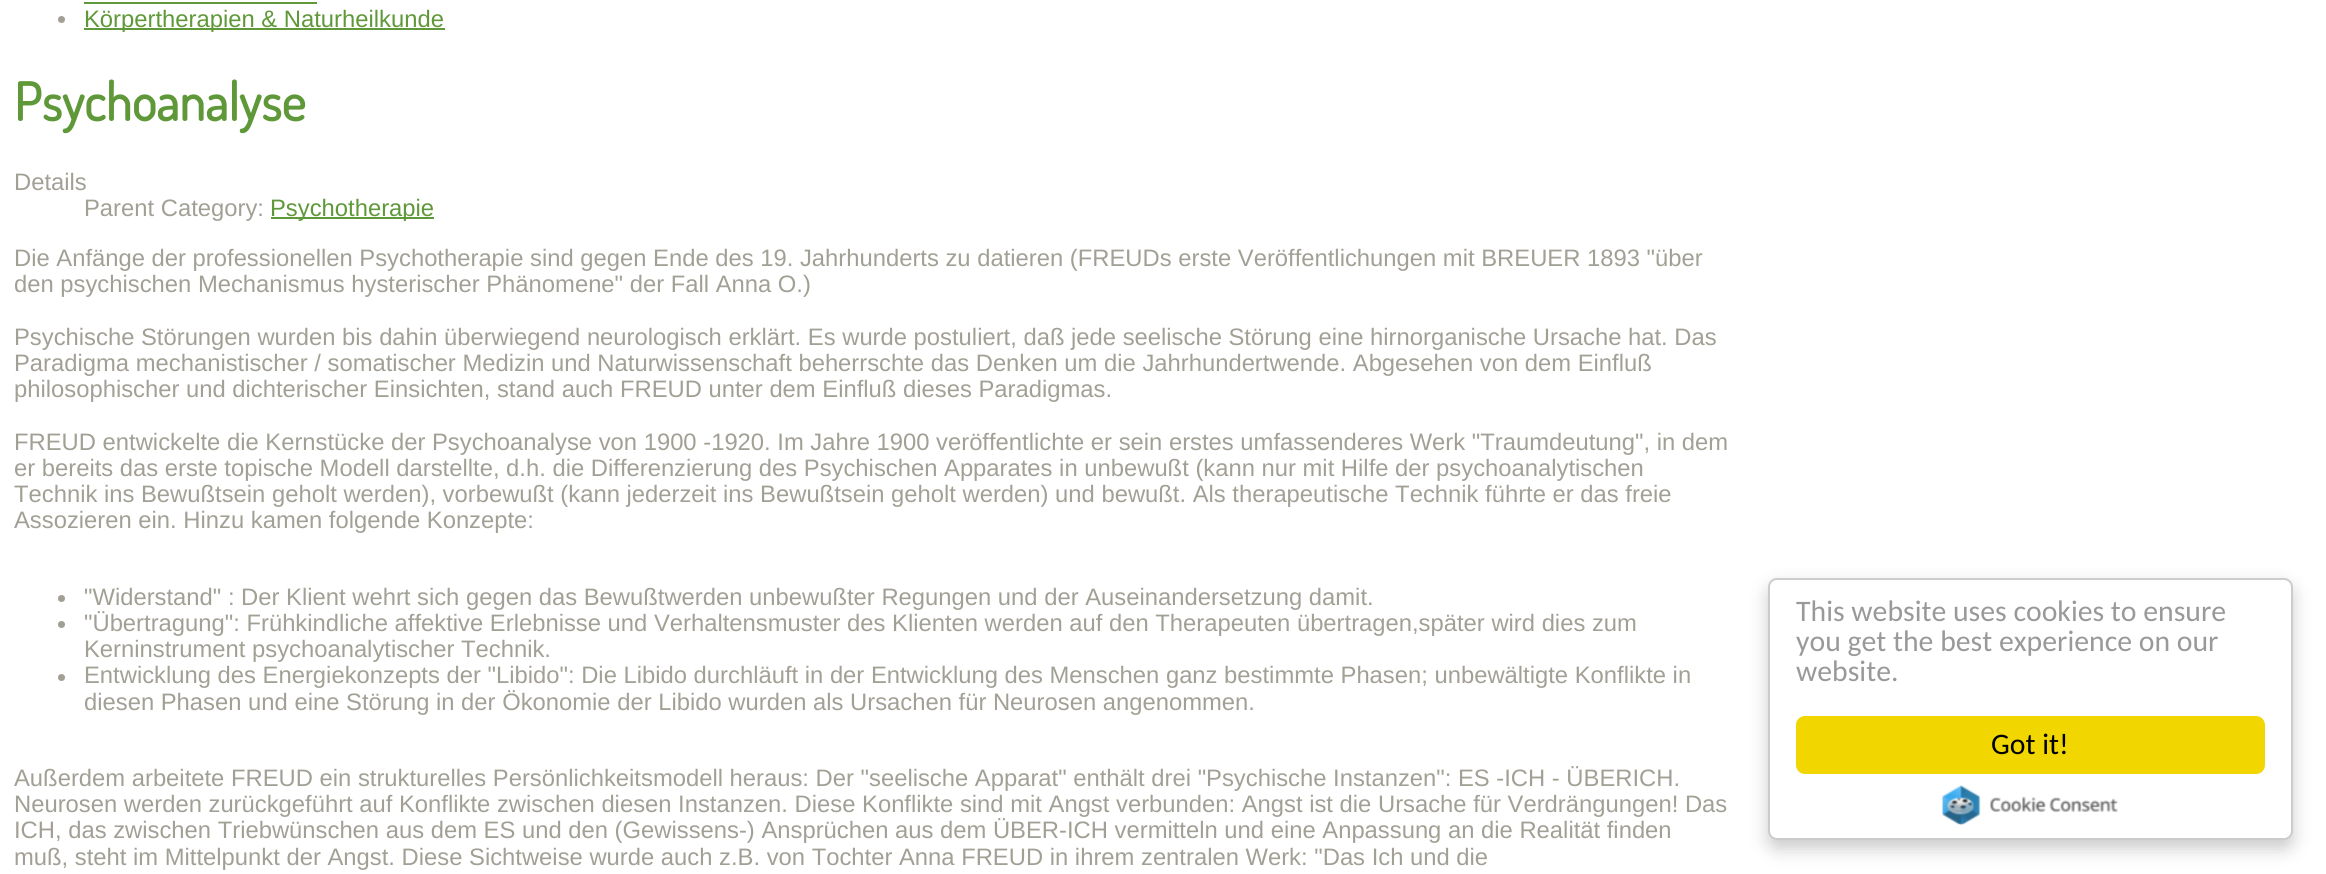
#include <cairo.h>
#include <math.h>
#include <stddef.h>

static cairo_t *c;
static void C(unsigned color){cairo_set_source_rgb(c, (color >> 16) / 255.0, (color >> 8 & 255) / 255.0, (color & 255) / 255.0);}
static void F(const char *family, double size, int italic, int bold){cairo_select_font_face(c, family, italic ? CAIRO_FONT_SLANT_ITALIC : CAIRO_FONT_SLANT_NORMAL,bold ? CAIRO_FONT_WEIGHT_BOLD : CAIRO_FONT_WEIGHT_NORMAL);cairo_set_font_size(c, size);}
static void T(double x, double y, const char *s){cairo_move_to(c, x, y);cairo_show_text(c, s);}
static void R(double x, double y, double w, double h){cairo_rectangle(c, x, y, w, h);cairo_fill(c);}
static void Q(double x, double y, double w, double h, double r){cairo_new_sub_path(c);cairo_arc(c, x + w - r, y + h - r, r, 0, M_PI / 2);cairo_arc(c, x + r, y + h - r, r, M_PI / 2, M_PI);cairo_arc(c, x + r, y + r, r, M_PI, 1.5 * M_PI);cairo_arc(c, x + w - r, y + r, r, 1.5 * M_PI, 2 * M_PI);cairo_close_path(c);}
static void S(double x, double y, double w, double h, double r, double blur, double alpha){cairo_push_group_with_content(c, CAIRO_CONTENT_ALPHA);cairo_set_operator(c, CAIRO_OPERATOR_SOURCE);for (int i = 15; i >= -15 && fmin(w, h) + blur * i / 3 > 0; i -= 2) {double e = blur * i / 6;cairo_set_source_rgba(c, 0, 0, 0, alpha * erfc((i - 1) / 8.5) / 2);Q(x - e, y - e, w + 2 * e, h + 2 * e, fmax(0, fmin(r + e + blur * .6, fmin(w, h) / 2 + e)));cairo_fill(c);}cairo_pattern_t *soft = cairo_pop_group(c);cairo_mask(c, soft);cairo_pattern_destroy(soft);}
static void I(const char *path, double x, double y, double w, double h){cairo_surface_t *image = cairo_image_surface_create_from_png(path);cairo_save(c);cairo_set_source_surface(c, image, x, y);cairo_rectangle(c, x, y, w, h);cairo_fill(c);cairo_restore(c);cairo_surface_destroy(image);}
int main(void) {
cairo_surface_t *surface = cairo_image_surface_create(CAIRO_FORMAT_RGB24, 2326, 874);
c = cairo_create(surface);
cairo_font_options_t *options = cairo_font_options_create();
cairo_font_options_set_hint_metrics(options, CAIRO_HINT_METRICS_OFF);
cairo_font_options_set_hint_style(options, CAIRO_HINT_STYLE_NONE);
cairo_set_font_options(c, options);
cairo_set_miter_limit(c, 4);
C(0xffffff);
cairo_paint(c);
C(0x5f9839);
R(84,2,233,2);
C(0xa2a095);
cairo_arc(c,61.5,19.5,3.5,0,2 * M_PI);
cairo_fill(c);
C(0x5f9839);
R(84,28,361,2);
F("Liberation Sans",23.8,0,0);
T(84,27,"Körpertherapien & Naturheilkunde");
F("Dosis",52.5,0,1);
T(14,121,"Psychoanalyse");
F("Liberation Sans",23.8,0,0);
C(0xa2a095);
T(14,190,"Details");
T(84,216,"Parent Category:");
C(0x5f9839);
R(271,217,163,2);
T(270,216,"Psychotherapie");
C(0xa2a095);
T(14,266,"Die Anfänge der professionellen Psychotherapie sind gegen Ende des 19. Jahrhunderts zu datieren (FREUDs erste Veröffentlichungen mit BREUER 1893 \"über");
T(14,292,"den psychischen Mechanismus hysterischer Phänomene\" der Fall Anna O.)");
T(14,345,"Psychische Störungen wurden bis dahin überwiegend neurologisch erklärt. Es wurde postuliert, daß jede seelische Störung eine hirnorganische Ursache hat. Das");
T(14,371,"Paradigma mechanistischer / somatischer Medizin und Naturwissenschaft beherrschte das Denken um die Jahrhundertwende. Abgesehen von dem Einfluß");
T(14,397,"philosophischer und dichterischer Einsichten, stand auch FREUD unter dem Einfluß dieses Paradigmas.");
T(14,450,"FREUD entwickelte die Kernstücke der Psychoanalyse von 1900 -1920. Im Jahre 1900 veröffentlichte er sein erstes umfassenderes Werk \"Traumdeutung\", in dem");
T(14,476,"er bereits das erste topische Modell darstellte, d.h. die Differenzierung des Psychischen Apparates in unbewußt (kann nur mit Hilfe der psychoanalytischen");
T(14,502,"Technik ins Bewußtsein geholt werden), vorbewußt (kann jederzeit ins Bewußtsein geholt werden) und bewußt. Als therapeutische Technik führte er das freie");
T(14,528,"Assozieren ein. Hinzu kamen folgende Konzepte:");
cairo_new_path(c);
cairo_arc(c,61.5,598.5,3.5,0,2 * M_PI);
cairo_fill(c);
T(84,605,"\"Widerstand\" : Der Klient wehrt sich gegen das Bewußtwerden unbewußter Regungen und der Auseinandersetzung damit.");
cairo_new_path(c);
cairo_arc(c,61.5,624.5,3.5,0,2 * M_PI);
cairo_fill(c);
T(84,631,"\"Übertragung\": Frühkindliche affektive Erlebnisse und Verhaltensmuster des Klienten werden auf den Therapeuten übertragen,später wird dies zum");
T(84,657,"Kerninstrument psychoanalytischer Technik.");
cairo_new_path(c);
cairo_arc(c,61.5,677.5,3.5,0,2 * M_PI);
cairo_fill(c);
T(84,683,"Entwicklung des Energiekonzepts der \"Libido\": Die Libido durchläuft in der Entwicklung des Menschen ganz bestimmte Phasen; unbewältigte Konflikte in");
T(84,710,"diesen Phasen und eine Störung in der Ökonomie der Libido wurden als Ursachen für Neurosen angenommen.");
T(14,786,"Außerdem arbeitete FREUD ein strukturelles Persönlichkeitsmodell heraus: Der \"seelische Apparat\" enthält drei \"Psychische Instanzen\": ES -ICH - ÜBERICH.");
T(14,812,"Neurosen werden zurückgeführt auf Konflikte zwischen diesen Instanzen. Diese Konflikte sind mit Angst verbunden: Angst ist die Ursache für Verdrängungen! Das");
T(14,838,"ICH, das zwischen Triebwünschen aus dem ES und den (Gewissens-) Ansprüchen aus dem ÜBER-ICH vermitteln und eine Anpassung an die Realität finden");
T(14,865,"muß, steht im Mittelpunkt der Angst. Diese Sichtweise wurde auch z.B. von Tochter Anna FREUD in ihrem zentralen Werk: \"Das Ich und die");
C(0x000000);
S(1768,586,525,263,9,9,.2);
C(0xffffff);
Q(1769,579,523,260,8);
cairo_fill_preserve(c);
C(0xcccccc);
cairo_stroke(c);
F("Carlito",29.75,0,0);
C(0x999999);
T(1796,621,"This website uses cookies to ensure");
T(1796,651,"you get the best experience on our");
T(1796,681,"website.");
C(0xf1d600);
Q(1796,716,469,58,9);
cairo_fill(c);
C(0x000000);
T(1991,754,"Got it!");
I("1.png",1942,785,176,40);
cairo_surface_write_to_png(surface, "o.png");
cairo_font_options_destroy(options);
cairo_destroy(c);
cairo_surface_destroy(surface);
return 0;
}
